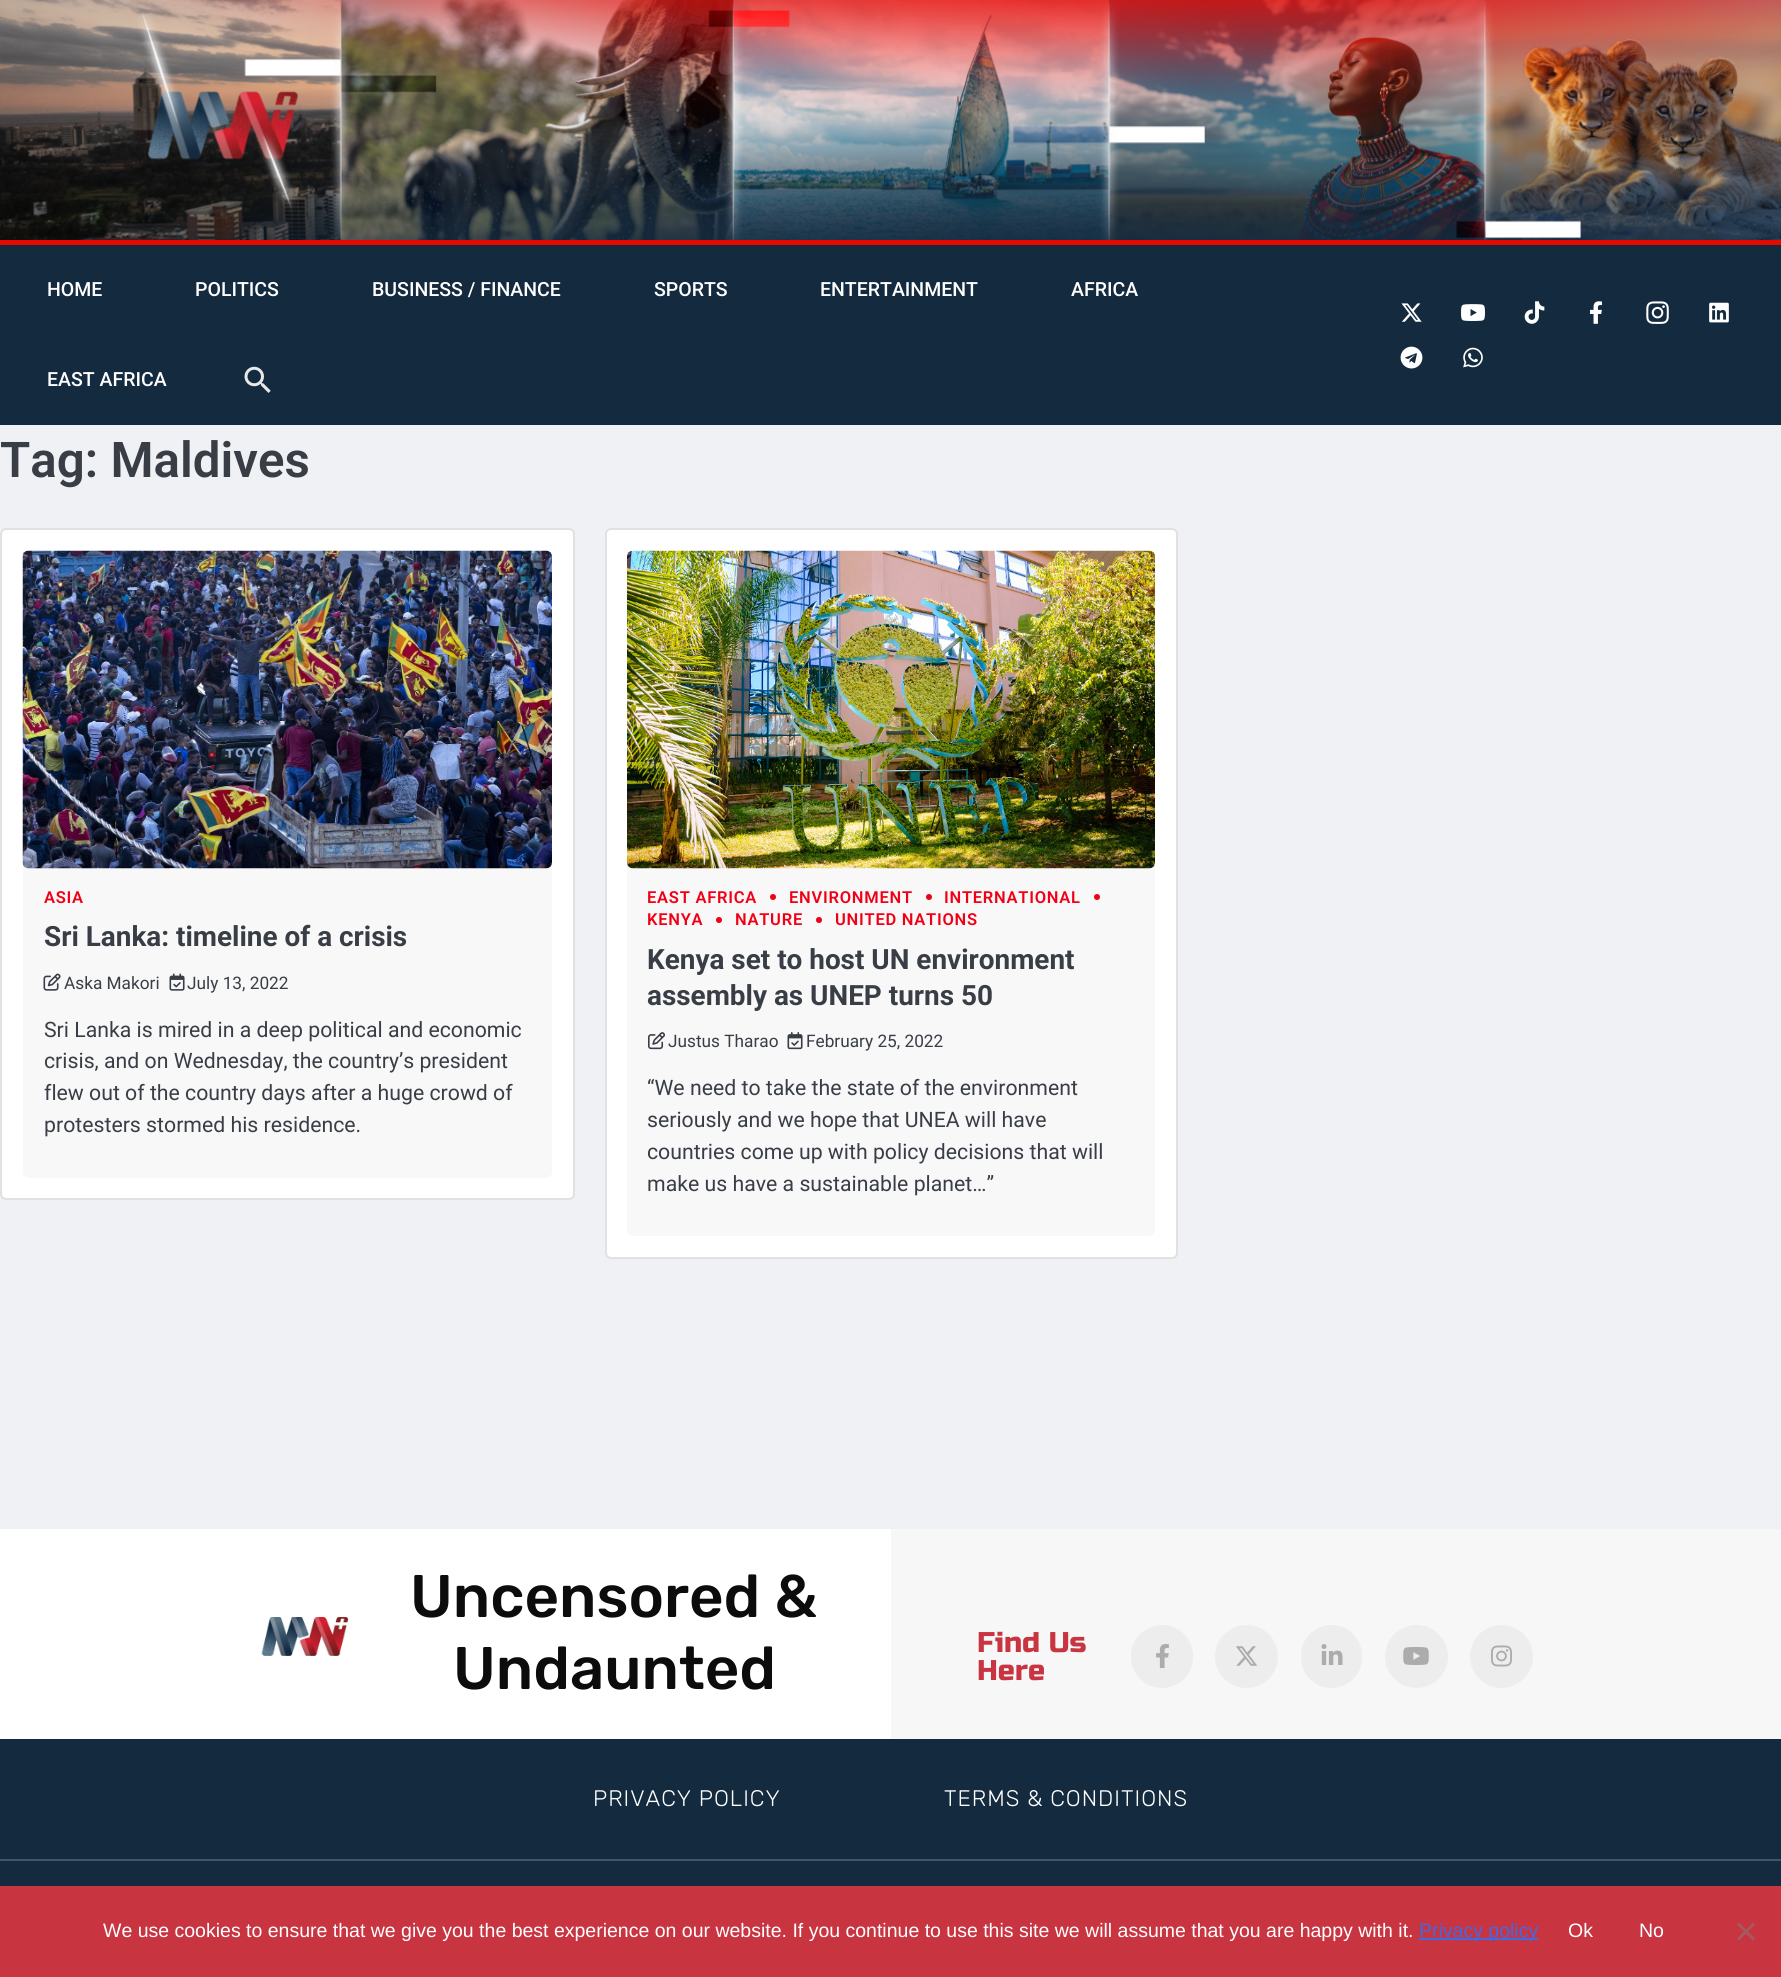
#include <cairo.h>
#include <math.h>
#include <stddef.h>

static cairo_t *c;
static void C(unsigned color){cairo_set_source_rgb(c, (color >> 16) / 255.0, (color >> 8 & 255) / 255.0, (color & 255) / 255.0);}
static void F(const char *family, double size, int italic, int bold){cairo_select_font_face(c, family, italic ? CAIRO_FONT_SLANT_ITALIC : CAIRO_FONT_SLANT_NORMAL,bold ? CAIRO_FONT_WEIGHT_BOLD : CAIRO_FONT_WEIGHT_NORMAL);cairo_set_font_size(c, size);}
static void T(double x, double y, const char *s){cairo_move_to(c, x, y);cairo_show_text(c, s);}
static void L(double x, double y, const char *s, double letter, double word){cairo_move_to(c, x, y);while (*s) {char ch[5] = {0};int n = 0;do ch[n++] = *s++; while ((*s & 0xC0) == 0x80);cairo_show_text(c, ch);cairo_rel_move_to(c, letter + word * (*ch == ' '), 0);}}
static void R(double x, double y, double w, double h){cairo_rectangle(c, x, y, w, h);cairo_fill(c);}
static void Q(double x, double y, double w, double h, double r){cairo_new_sub_path(c);cairo_arc(c, x + w - r, y + h - r, r, 0, M_PI / 2);cairo_arc(c, x + r, y + h - r, r, M_PI / 2, M_PI);cairo_arc(c, x + r, y + r, r, M_PI, 1.5 * M_PI);cairo_arc(c, x + w - r, y + r, r, 1.5 * M_PI, 2 * M_PI);cairo_close_path(c);}
static void I(const char *path, double x, double y, double w, double h){cairo_surface_t *image = cairo_image_surface_create_from_png(path);cairo_save(c);cairo_set_source_surface(c, image, x, y);cairo_rectangle(c, x, y, w, h);cairo_fill(c);cairo_restore(c);cairo_surface_destroy(image);}
int main(void) {
cairo_surface_t *surface = cairo_image_surface_create(CAIRO_FORMAT_RGB24, 1781, 1977);
c = cairo_create(surface);
cairo_font_options_t *options = cairo_font_options_create();
cairo_font_options_set_hint_metrics(options, CAIRO_HINT_METRICS_OFF);
cairo_font_options_set_hint_style(options, CAIRO_HINT_STYLE_NONE);
cairo_set_font_options(c, options);
cairo_set_miter_limit(c, 4);
C(0xf0f1f4);
cairo_paint(c);
I("1.png",0,0,1781,240);
C(0x132a3f);
R(0,245,1781,180);
C(0xe70800);
R(0,240,1781,5);
F("Roboto Medium",19.5,0,0);
C(0xffffff);
T(47,296,"HOME");
T(195,296,"POLITICS");
T(372,296,"BUSINESS / FINANCE");
T(654,296,"SPORTS");
T(820,296,"ENTERTAINMENT");
T(1071,296,"AFRICA");
T(47,386,"EAST AFRICA");
I("2.png",244,366,27,27);
I("3.png",1401,303,21,19);
I("4.png",1461,304,24,17);
I("5.png",1524,301,21,23);
I("6.png",1590,301,12,23);
I("7.png",1646,301,23,23);
I("8.png",1709,302,20,21);
I("9.png",1400,346,23,23);
I("10.png",1463,347,20,21);
F("Roboto SemiBold",49.25,0,0);
C(0x393e46);
T(0,477,"Tag: Maldives");
C(0xffffff);
Q(1,529,573,670,5);
cairo_fill_preserve(c);
C(0xe1e1e1);
cairo_stroke(c);
C(0xf8f8f9);
Q(23,551,529,627,6);
cairo_fill(c);
I("11.png",22,550,530,319);
F("Roboto SemiBold",16.5,0,0);
C(0xf10015);
L(44,903,"ASIA",.75,0);
F("Roboto",27.9,0,1);
C(0x393e46);
T(44,946,"Sri Lanka: timeline of a crisis");
I("12.png",43,973,18,18);
F("Roboto",17.25,0,0);
T(64,989,"Aska Makori");
I("13.png",169,973,16,18);
T(187,989,"July 13, 2022");
F("Roboto",21.25,0,0);
T(44,1037,"Sri Lanka is mired in a deep political and economic");
T(44,1068,"crisis, and on Wednesday, the country’s president");
T(44,1100,"flew out of the country days after a huge crowd of");
T(44,1132,"protesters stormed his residence.");
C(0xffffff);
Q(606,529,571,729,5);
cairo_fill_preserve(c);
C(0xe1e1e1);
cairo_stroke(c);
C(0xf8f8f9);
Q(627,551,528,685,6);
cairo_fill(c);
I("14.png",627,550,528,319);
F("Roboto SemiBold",16.5,0,0);
C(0xf10015);
L(647,903,"EAST AFRICA",.75,0);
cairo_new_path(c);
cairo_arc(c,773,897,3,0,2 * M_PI);
cairo_fill(c);
L(789,903,"ENVIRONMENT",.75,0);
cairo_new_path(c);
cairo_arc(c,929,897,3,0,2 * M_PI);
cairo_fill(c);
L(944,903,"INTERNATIONAL",.75,0);
cairo_new_path(c);
cairo_arc(c,1097,897,3,0,2 * M_PI);
cairo_fill(c);
L(647,925,"KENYA",.75,0);
cairo_new_path(c);
cairo_arc(c,719,920,3,0,2 * M_PI);
cairo_fill(c);
L(735,925,"NATURE",.75,0);
cairo_new_path(c);
cairo_arc(c,819,920,3,0,2 * M_PI);
cairo_fill(c);
L(835,925,"UNITED NATIONS",.75,0);
F("Roboto",27.9,0,1);
C(0x393e46);
T(647,969,"Kenya set to host UN environment");
T(647,1005,"assembly as UNEP turns 50");
I("15.png",648,1032,17,18);
F("Roboto",17.25,0,0);
T(668,1047,"Justus Tharao");
I("16.png",787,1032,16,18);
T(806,1047,"February 25, 2022");
F("Roboto",21.25,0,0);
T(647,1095,"“We need to take the state of the environment");
T(647,1127,"seriously and we hope that UNEA will have");
T(647,1159,"countries come up with policy decisions that will");
T(647,1191,"make us have a sustainable planet…”");
C(0xffffff);
R(0,1529,891,210);
I("17.png",261,1616,88,40);
F("Rubik Medium",60,0,0);
C(0x0c0c0c);
T(410,1617,"Uncensored &");
T(453,1689,"Undaunted");
C(0xf7f7f7);
R(891,1529,890,210);
F("Russo One",28.5,0,0);
C(0xc83440);
T(977,1652,"Find Us");
T(977,1680,"Here");
C(0xededed);
Q(1131,1625,62,63,31);
cairo_fill(c);
I("18.png",1156,1644,13,24);
cairo_arc(c,1246.5,1656.5,31.5,0,2 * M_PI);
cairo_fill(c);
I("19.png",1236,1646,22,20);
Q(1301,1625,61,63,30.5);
cairo_fill(c);
I("20.png",1321,1644,22,21);
cairo_arc(c,1416.5,1656.5,31.5,0,2 * M_PI);
cairo_fill(c);
I("21.png",1403,1647,26,18);
cairo_arc(c,1501.5,1656.5,31.5,0,2 * M_PI);
cairo_fill(c);
I("22.png",1491,1645,21,22);
C(0x132a3f);
R(0,1739,1781,120);
F("Rubik Light",22.5,0,0);
C(0xffffff);
L(593,1806,"PRIVACY POLICY",1,0);
L(944,1806,"TERMS & CONDITIONS",1,0);
C(0x132a3f);
R(0,1861,1781,25);
C(0x425565);
R(0,1859,1781,2);
C(0xc83440);
R(0,1886,1781,91);
F("Liberation Sans",19.5,0,0);
C(0xffffff);
T(103,1937,"We use cookies to ensure that we give you the best experience on our website. If you continue to use this site we will assume that you are happy with it.");
C(0x4169e1);
R(1419,1938,119,2);
T(1419,1937,"Privacy policy");
C(0xffffff);
T(1568,1937,"Ok");
T(1639,1937,"No");
C(0xa45a60);
cairo_new_path(c);
cairo_move_to(c,1753,1922.5);
cairo_line_to(c,1755,1924.5);
cairo_line_to(c,1739,1940.5);
cairo_line_to(c,1737,1938.5);
cairo_close_path(c);
cairo_fill(c);
cairo_new_path(c);
cairo_move_to(c,1737,1924.5);
cairo_line_to(c,1739,1922.5);
cairo_line_to(c,1755,1938.5);
cairo_line_to(c,1753,1940.5);
cairo_close_path(c);
cairo_fill(c);
cairo_surface_write_to_png(surface, "o.png");
cairo_font_options_destroy(options);
cairo_destroy(c);
cairo_surface_destroy(surface);
return 0;
}
